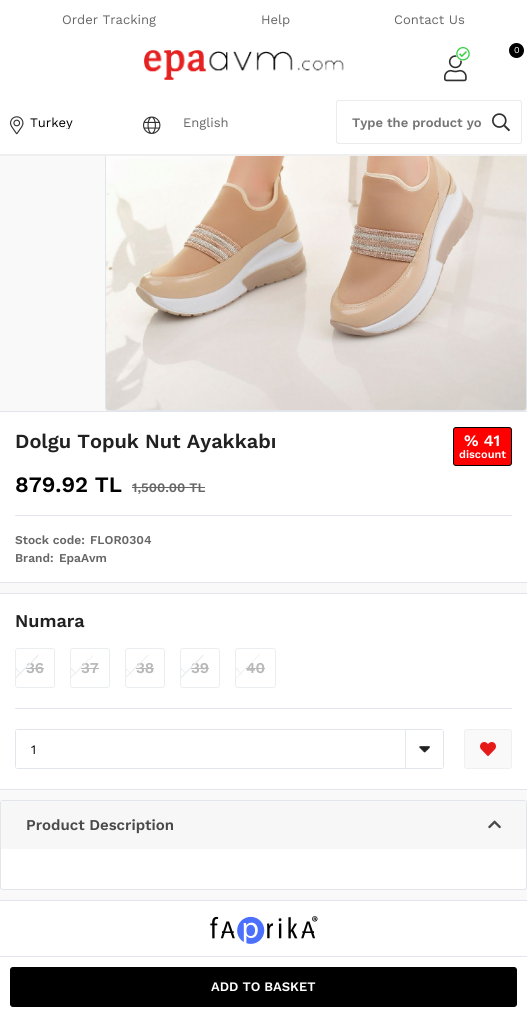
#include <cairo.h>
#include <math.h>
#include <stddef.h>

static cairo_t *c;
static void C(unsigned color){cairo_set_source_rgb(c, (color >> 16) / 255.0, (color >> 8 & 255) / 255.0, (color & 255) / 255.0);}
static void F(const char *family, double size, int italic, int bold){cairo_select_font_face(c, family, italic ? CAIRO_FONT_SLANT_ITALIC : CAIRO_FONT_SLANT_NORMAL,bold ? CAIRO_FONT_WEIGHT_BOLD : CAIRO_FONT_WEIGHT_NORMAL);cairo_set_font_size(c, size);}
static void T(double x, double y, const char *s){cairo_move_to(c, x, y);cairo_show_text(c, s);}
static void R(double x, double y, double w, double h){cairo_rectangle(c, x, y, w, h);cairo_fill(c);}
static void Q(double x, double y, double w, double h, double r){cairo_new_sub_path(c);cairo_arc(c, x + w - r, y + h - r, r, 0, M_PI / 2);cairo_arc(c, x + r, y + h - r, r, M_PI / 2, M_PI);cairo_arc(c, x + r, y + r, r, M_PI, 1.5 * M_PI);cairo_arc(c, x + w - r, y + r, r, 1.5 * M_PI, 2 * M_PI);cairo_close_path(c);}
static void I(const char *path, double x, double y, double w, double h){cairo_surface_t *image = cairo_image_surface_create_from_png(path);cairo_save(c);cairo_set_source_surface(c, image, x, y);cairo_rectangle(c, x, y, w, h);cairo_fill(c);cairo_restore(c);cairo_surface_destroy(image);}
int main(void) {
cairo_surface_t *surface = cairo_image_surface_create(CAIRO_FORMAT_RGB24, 527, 1017);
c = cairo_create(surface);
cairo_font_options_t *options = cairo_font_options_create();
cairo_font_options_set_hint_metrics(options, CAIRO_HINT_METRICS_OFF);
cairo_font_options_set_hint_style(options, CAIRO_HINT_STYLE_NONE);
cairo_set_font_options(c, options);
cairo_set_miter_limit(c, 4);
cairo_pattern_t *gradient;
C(0xfaf9f9);
cairo_paint(c);
Q(105.5,-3.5,421,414,2.5);
C(0xe2e6eb);
cairo_set_line_width(c,1);
cairo_stroke(c);
C(0xffffff);
R(0,0,527,154);
F("Work Sans",13,0,0);
C(0x666666);
T(62,24,"Order Tracking");
T(261,24,"Help");
T(394,24,"Contact Us");
I("1.png",144,50,200,30);
I("3.png",444,55,23,27);
C(0xffffff);
cairo_arc(c,463,54,7,0,2 * M_PI);
cairo_fill(c);
I("2.png",456,47,14,14);
C(0x000000);
cairo_arc(c,516.5,50.5,7.5,0,2 * M_PI);
cairo_fill(c);
F("Work Sans",9,0,0);
C(0xffffff);
T(514,53,"0");
C(0xefefef);
R(0,154,527,2);
I("4.png",10,116,14,19);
cairo_save(c);
cairo_rectangle(c,30,116,90,13);
cairo_clip(c);
F("Work Sans",13,0,0);
C(0x000000);
T(30,127,"Turkey");
cairo_restore(c);
I("5.png",143,116,18,18);
F("Work Sans",13,0,0);
C(0x666666);
T(183,127,"English");
C(0xececec);
cairo_set_fill_rule(c,CAIRO_FILL_RULE_EVEN_ODD);
cairo_new_path(c);
cairo_move_to(c,339,100);
cairo_line_to(c,497,100);
cairo_line_to(c,497,144);
cairo_line_to(c,339,144);
cairo_curve_to(c,337,144,336,143,336,141);
cairo_line_to(c,336,103);
cairo_curve_to(c,336,101,337,100,339,100);
cairo_close_path(c);
cairo_move_to(c,339,101);
cairo_line_to(c,497,101);
cairo_line_to(c,497,143);
cairo_line_to(c,339,143);
cairo_curve_to(c,338,143,337,142,337,141);
cairo_line_to(c,337,103);
cairo_curve_to(c,337,102,338,101,339,101);
cairo_close_path(c);
cairo_fill(c);
F("Work Sans SemiBold",13,0,0);
C(0x757575);
T(352,127,"Type the product yo");
C(0xececec);
cairo_new_path(c);
cairo_move_to(c,472,100);
cairo_line_to(c,519,100);
cairo_curve_to(c,521,100,522,101,522,103);
cairo_line_to(c,522,141);
cairo_curve_to(c,522,143,521,144,519,144);
cairo_line_to(c,472,144);
cairo_close_path(c);
cairo_move_to(c,472,101);
cairo_line_to(c,519,101);
cairo_curve_to(c,520,101,521,102,521,103);
cairo_line_to(c,521,141);
cairo_curve_to(c,521,142,520,143,519,143);
cairo_line_to(c,472,143);
cairo_close_path(c);
cairo_fill(c);
I("6.png",492,113,18,19);
I("7.png",106,156,420,254);
C(0xffffff);
R(0,412,527,170);
C(0xe2e6eb);
R(0,411,527,1);
R(0,582,527,1);
F("Work Sans SemiBold",20,0,0);
C(0x212121);
T(15,448,"Dolgu Topuk Nut Ayakkabı");
C(0xe2e6eb);
R(15,515,497,1);
F("Work Sans SemiBold",22,0,0);
C(0x000000);
T(15,492,"879.92 TL");
C(0xff0000);
Q(453.5,427.5,58,38,2.5);
cairo_fill_preserve(c);
C(0x000000);
cairo_stroke(c);
F("Work Sans SemiBold",16,0,0);
C(0xffffff);
T(464,446,"% 41");
F("Work Sans SemiBold",11,0,0);
T(459,458,"discount");
F("Work Sans SemiBold",13,0,0);
C(0x666666);
T(132,492,"1,500.00 TL");
R(132,487,73,1);
F("Work Sans SemiBold",12,0,0);
T(15,544,"Stock code:");
T(90,544,"FLOR0304");
T(15,562,"Brand:");
T(59,562,"EpaAvm");
C(0xffffff);
R(0,594,527,195);
C(0xe2e6eb);
R(0,593,527,1);
R(0,789,527,1);
R(15,708,497,1);
F("Work Sans SemiBold",18,0,0);
C(0x212121);
T(15,627,"Numara");
Q(15.5,648.5,39,39,2.5);
C(0xebeef1);
cairo_stroke(c);
cairo_set_fill_rule(c,CAIRO_FILL_RULE_WINDING);
cairo_new_path(c);
cairo_move_to(c,16.5,668);
cairo_line_to(c,23,675.5);
cairo_curve_to(c,23.5,676.5,21,674,21,674);
cairo_line_to(c,16,669.5);
cairo_line_to(c,16,667.5);
cairo_close_path(c);
cairo_fill(c);
F("Work Sans SemiBold",15,0,0);
C(0xb8b8b8);
T(26,673,"36");
R(26,668,18,1);
C(0xebeef1);
cairo_new_path(c);
cairo_move_to(c,16,678.5);
cairo_line_to(c,16,676.5);
cairo_line_to(c,38,654.5);
cairo_line_to(c,39,655.5);
cairo_close_path(c);
cairo_fill(c);
Q(70.5,648.5,39,39,2.5);
cairo_stroke(c);
cairo_new_path(c);
cairo_move_to(c,71.5,668);
cairo_line_to(c,78,675.5);
cairo_curve_to(c,78.5,676.5,76,674,76,674);
cairo_line_to(c,71,669.5);
cairo_line_to(c,71,667.5);
cairo_close_path(c);
cairo_fill(c);
C(0xb8b8b8);
T(81,673,"37");
R(81,668,18,1);
C(0xebeef1);
cairo_new_path(c);
cairo_move_to(c,71,678);
cairo_line_to(c,71,676.5);
cairo_line_to(c,93,655);
cairo_line_to(c,93.5,655.5);
cairo_close_path(c);
cairo_fill(c);
gradient = cairo_pattern_create_linear(79,668,81,669);
cairo_pattern_add_color_stop_rgba(gradient,0,0.922,0.933,0.945,0);
cairo_pattern_add_color_stop_rgba(gradient,0,0.922,0.933,0.945,1);
cairo_pattern_add_color_stop_rgba(gradient,.5,0.922,0.933,0.945,1);
cairo_pattern_add_color_stop_rgba(gradient,.5,0.922,0.933,0.945,0);
cairo_set_source(c,gradient);
cairo_pattern_destroy(gradient);
cairo_new_path(c);
cairo_move_to(c,71,678);
cairo_line_to(c,71,676.5);
cairo_line_to(c,93,655);
cairo_line_to(c,93.5,655.5);
cairo_close_path(c);
cairo_fill(c);
Q(125.5,648.5,39,39,2.5);
C(0xebeef1);
cairo_stroke(c);
cairo_new_path(c);
cairo_move_to(c,126,668);
cairo_line_to(c,132.5,675);
cairo_curve_to(c,133.5,676.5,132,675,131.5,674.5);
cairo_line_to(c,126,669.5);
cairo_close_path(c);
cairo_fill(c);
C(0xb8b8b8);
T(136,673,"38");
R(136,668,18,1);
C(0xebeef1);
cairo_new_path(c);
cairo_move_to(c,126,678);
cairo_line_to(c,126,676.5);
cairo_line_to(c,148,654.5);
cairo_line_to(c,148.5,655.5);
cairo_close_path(c);
cairo_fill(c);
gradient = cairo_pattern_create_linear(134,668,136,669);
cairo_pattern_add_color_stop_rgba(gradient,0,0.922,0.933,0.945,0);
cairo_pattern_add_color_stop_rgba(gradient,0,0.922,0.933,0.945,1);
cairo_pattern_add_color_stop_rgba(gradient,.5,0.922,0.933,0.945,1);
cairo_pattern_add_color_stop_rgba(gradient,.5,0.922,0.933,0.945,0);
cairo_set_source(c,gradient);
cairo_pattern_destroy(gradient);
cairo_new_path(c);
cairo_move_to(c,126,678);
cairo_line_to(c,126,676.5);
cairo_line_to(c,148,654.5);
cairo_line_to(c,148.5,655.5);
cairo_close_path(c);
cairo_fill(c);
Q(180.5,648.5,39,39,2.5);
C(0xebeef1);
cairo_stroke(c);
cairo_new_path(c);
cairo_move_to(c,181.5,668);
cairo_line_to(c,187.5,675);
cairo_line_to(c,181,669.5);
cairo_line_to(c,181,667.5);
cairo_close_path(c);
cairo_fill(c);
C(0xb8b8b8);
T(191,673,"39");
R(191,668,18,1);
C(0xebeef1);
cairo_new_path(c);
cairo_move_to(c,181,678.5);
cairo_line_to(c,181,676.5);
cairo_line_to(c,203,654.5);
cairo_line_to(c,204,655.5);
cairo_close_path(c);
cairo_fill(c);
Q(235.5,648.5,40,39,2.5);
cairo_stroke(c);
cairo_new_path(c);
cairo_move_to(c,236.5,668);
cairo_line_to(c,242.5,675);
cairo_curve_to(c,243.5,676,242,674.5,241.5,674.5);
cairo_line_to(c,236,669.5);
cairo_line_to(c,236,667.5);
cairo_close_path(c);
cairo_fill(c);
C(0xb8b8b8);
T(246,673,"40");
R(246,668,19,1);
C(0xebeef1);
cairo_new_path(c);
cairo_move_to(c,236,678.5);
cairo_line_to(c,236,677.5);
cairo_line_to(c,259,654.5);
cairo_line_to(c,259.5,655);
cairo_close_path(c);
cairo_fill(c);
Q(15.5,729.5,428,39,2.5);
C(0xe2e6eb);
cairo_stroke(c);
C(0xffffff);
R(16,730,427,38);
I("8.png",405,730,25,38);
F("Work Sans",13,0,0);
C(0x000000);
T(31,754,"1");
C(0xfaf9f9);
Q(464.5,729.5,47,39,2.5);
cairo_fill_preserve(c);
C(0xefefef);
cairo_stroke(c);
I("9.png",480,742,16,14);
C(0xffffff);
R(0,957,527,60);
C(0xe2e6eb);
R(0,956,527,1);
C(0x000000);
Q(10.5,967.5,506,39,2.5);
cairo_fill_preserve(c);
cairo_stroke(c);
F("Work Sans SemiBold",13,0,0);
C(0xffffff);
T(211,991,"ADD TO BASKET");
Q(.5,800.5,526,89,2.5);
cairo_fill_preserve(c);
C(0xe2e6eb);
cairo_stroke(c);
C(0xf7f7f7);
R(1,801,525,48);
F("Work Sans SemiBold",15,0,0);
C(0x4a4a4a);
T(26,830,"Product Description");
I("10.png",488,820,13,9);
C(0xffffff);
R(0,901,527,55);
C(0xe2e6eb);
R(0,900,527,1);
I("11.png",210,916,108,28);
cairo_surface_write_to_png(surface, "o.png");
cairo_font_options_destroy(options);
cairo_destroy(c);
cairo_surface_destroy(surface);
return 0;
}
